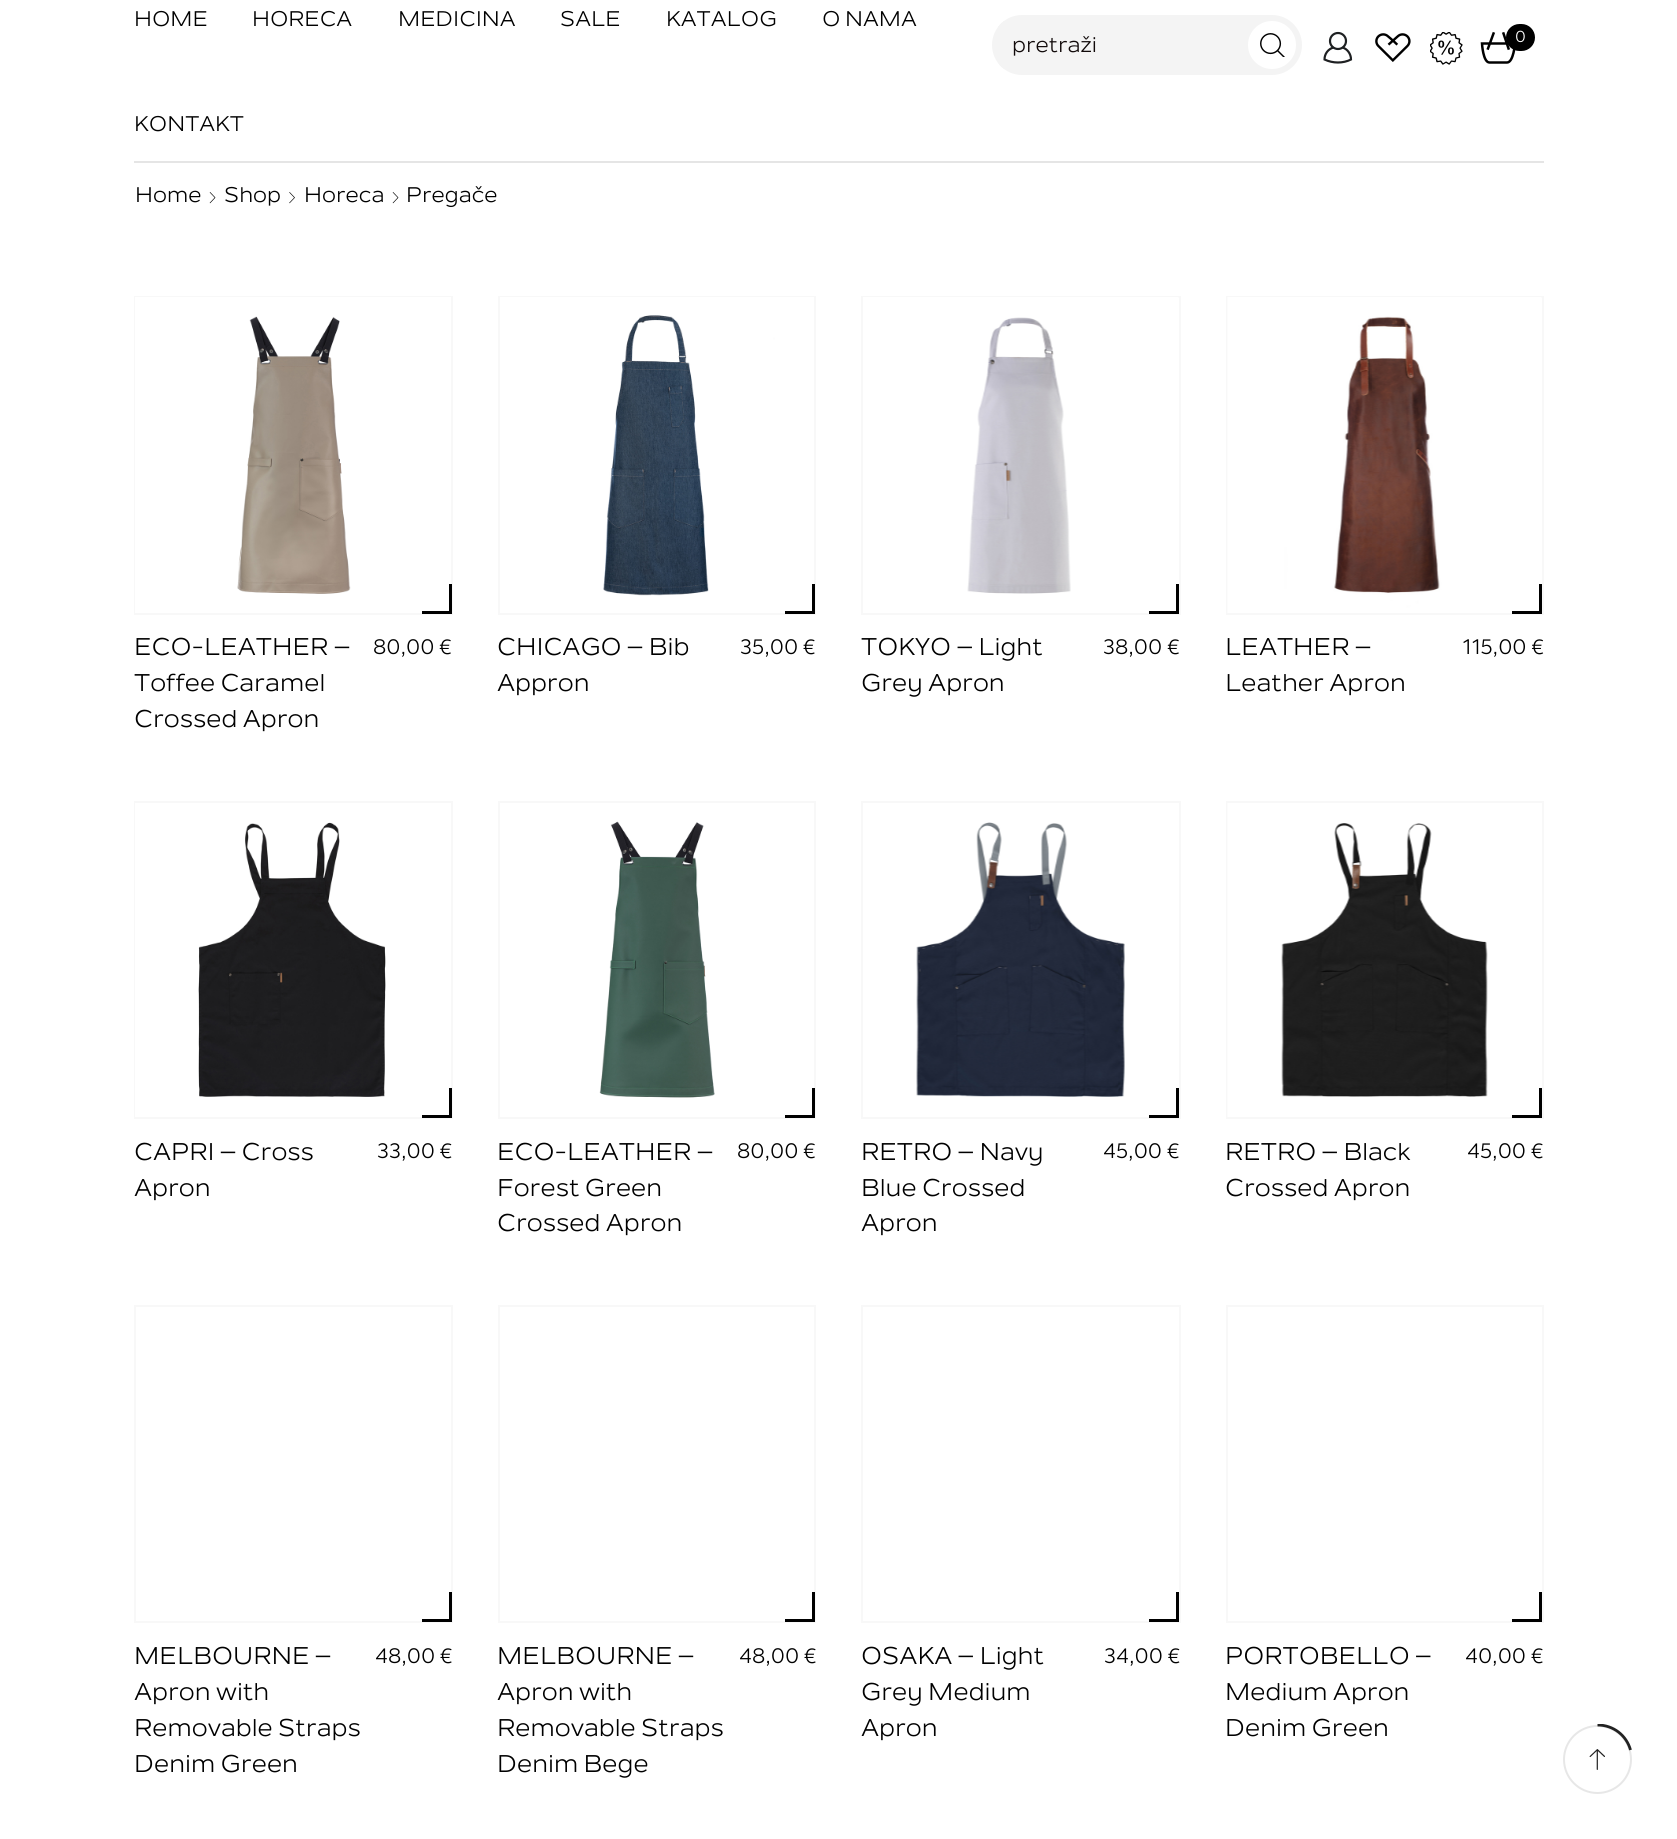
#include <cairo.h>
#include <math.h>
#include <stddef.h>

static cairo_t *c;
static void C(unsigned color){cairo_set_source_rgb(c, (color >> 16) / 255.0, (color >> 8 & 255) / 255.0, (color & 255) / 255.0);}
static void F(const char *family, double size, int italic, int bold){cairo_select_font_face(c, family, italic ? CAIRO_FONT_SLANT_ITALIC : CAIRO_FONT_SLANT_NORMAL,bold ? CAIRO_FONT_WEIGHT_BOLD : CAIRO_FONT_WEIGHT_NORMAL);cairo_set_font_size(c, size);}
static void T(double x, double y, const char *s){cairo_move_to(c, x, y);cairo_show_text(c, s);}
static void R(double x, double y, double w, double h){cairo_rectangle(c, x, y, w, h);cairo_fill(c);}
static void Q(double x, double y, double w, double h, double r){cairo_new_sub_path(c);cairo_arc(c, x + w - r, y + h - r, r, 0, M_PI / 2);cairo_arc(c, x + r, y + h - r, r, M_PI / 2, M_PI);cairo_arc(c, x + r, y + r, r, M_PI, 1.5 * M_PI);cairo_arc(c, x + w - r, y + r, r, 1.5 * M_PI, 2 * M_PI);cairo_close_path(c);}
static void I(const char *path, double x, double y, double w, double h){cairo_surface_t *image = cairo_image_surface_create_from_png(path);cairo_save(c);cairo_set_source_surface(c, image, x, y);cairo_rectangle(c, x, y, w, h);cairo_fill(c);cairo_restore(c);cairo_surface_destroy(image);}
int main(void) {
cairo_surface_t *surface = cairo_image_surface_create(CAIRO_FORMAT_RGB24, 1677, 1839);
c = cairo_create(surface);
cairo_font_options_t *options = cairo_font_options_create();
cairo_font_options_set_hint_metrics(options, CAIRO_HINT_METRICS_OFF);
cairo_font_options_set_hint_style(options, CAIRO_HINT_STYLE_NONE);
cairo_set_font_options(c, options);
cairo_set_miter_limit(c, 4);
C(0xffffff);
cairo_paint(c);
F("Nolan",21,0,0);
C(0x000000);
T(134,26,"HOME");
T(252,26,"HORECA");
T(398,26,"MEDICINA");
T(560,26,"SALE");
T(666,26,"KATALOG");
T(822,26,"O NAMA");
T(134,131,"KONTAKT");
C(0xf4f4f4);
Q(992,15,310,60,30);
cairo_fill(c);
cairo_save(c);
Q(992,15,310,60,30);
cairo_clip(c);
R(998,21,250,48);
cairo_restore(c);
C(0x100909);
T(1012,52,"pretraži");
C(0xffffff);
cairo_new_path(c);
cairo_arc(c,1272,45,24,0,2 * M_PI);
cairo_fill(c);
I("1.png",1260,33,25,24);
cairo_arc(c,1338,41,8,0,2 * M_PI);
C(0x1e2022);
cairo_set_line_width(c,2.2);
cairo_stroke(c);
cairo_new_path(c);
cairo_move_to(c,1333.5,47.5);
cairo_curve_to(c,1328,49,1324.5,54,1324.5,59.5);
cairo_curve_to(c,1333,63.5,1343,63.5,1351,59.5);
cairo_curve_to(c,1351,54,1347.5,49,1342.5,47.5);
cairo_stroke(c);
I("2.png",1375,33,36,29);
I("3.png",1430,32,33,33);
cairo_new_path(c);
cairo_move_to(c,1503.5,33.5);
cairo_line_to(c,1508.5,48.5);
cairo_move_to(c,1493.5,33.5);
cairo_line_to(c,1488,48.5);
cairo_move_to(c,1482,43.5);
cairo_line_to(c,1515,43.5);
cairo_curve_to(c,1515,43.5,1513.5,62.5,1507,62.5);
cairo_line_to(c,1489.5,62.5);
cairo_curve_to(c,1483,62.5,1482,43.5,1482,43.5);
cairo_close_path(c);
C(0x000000);
cairo_set_line_width(c,2.5);
cairo_set_line_cap(c,CAIRO_LINE_CAP_SQUARE);
cairo_stroke(c);
Q(1506,24,29,27,13.5);
cairo_fill(c);
F("Nolan",16,0,0);
C(0xffffff);
T(1515,42,"0");
C(0xe5e5e5);
R(134,161,1410,2);
F("Nolan",21,0,0);
C(0x000000);
T(135,202,"Home");
I("4.png",209,192,7,12);
T(224,202,"Shop");
I("5.png",289,192,6,12);
T(304,202,"Horeca");
I("4.png",392,192,7,12);
T(406,202,"Pregače");
cairo_rectangle(c,135,297,317,317);
C(0xf8f8f8);
cairo_set_line_width(c,2);
cairo_set_line_cap(c,CAIRO_LINE_CAP_BUTT);
cairo_stroke(c);
I("6.png",135,297,316,316);
C(0x000000);
R(449,584,3,30);
R(422,611,30,3);
F("Nolan",24,0,0);
T(134,655,"ECO-LEATHER –");
T(134,691,"Toffee Caramel");
T(134,727,"Crossed Apron");
F("Nolan",21,0,0);
T(373,654,"80,00 €");
cairo_rectangle(c,499,297,316,317);
C(0xf8f8f8);
cairo_stroke(c);
I("7.png",500,297,314,299);
C(0x000000);
R(812,584,3,30);
R(785,611,30,3);
F("Nolan",24,0,0);
T(497,655,"CHICAGO – Bib");
T(497,691,"Appron");
F("Nolan",21,0,0);
T(740,654,"35,00 €");
cairo_rectangle(c,862,297,318,317);
C(0xf8f8f8);
cairo_stroke(c);
I("8.png",863,297,316,297);
C(0x000000);
R(1176,584,3,30);
R(1149,611,30,3);
F("Nolan",24,0,0);
T(861,655,"TOKYO – Light");
T(861,691,"Grey Apron");
F("Nolan",21,0,0);
T(1103,654,"38,00 €");
cairo_rectangle(c,1227,297,316,317);
C(0xf8f8f8);
cairo_stroke(c);
I("9.png",1227,297,315,316);
C(0x000000);
R(1539,584,3,30);
R(1512,611,30,3);
F("Nolan",24,0,0);
T(1225,655,"LEATHER –");
T(1225,691,"Leather Apron");
F("Nolan",21,0,0);
T(1462,654,"115,00 €");
cairo_rectangle(c,135,802,317,316);
C(0xf8f8f8);
cairo_stroke(c);
I("10.png",135,803,251,314);
C(0x000000);
R(449,1088,3,30);
R(422,1115,30,3);
F("Nolan",24,0,0);
T(134,1160,"CAPRI – Cross");
T(134,1196,"Apron");
F("Nolan",21,0,0);
T(377,1158,"33,00 €");
cairo_rectangle(c,499,802,316,316);
C(0xf8f8f8);
cairo_stroke(c);
I("11.png",599,821,116,277);
C(0x000000);
R(812,1088,3,30);
R(785,1115,30,3);
F("Nolan",24,0,0);
T(497,1160,"ECO-LEATHER –");
T(497,1196,"Forest Green");
T(497,1231,"Crossed Apron");
F("Nolan",21,0,0);
T(737,1158,"80,00 €");
cairo_rectangle(c,862,802,318,316);
C(0xf8f8f8);
cairo_stroke(c);
I("12.png",916,822,209,275);
C(0x000000);
R(1176,1088,3,30);
R(1149,1115,30,3);
F("Nolan",24,0,0);
T(861,1160,"RETRO – Navy");
T(861,1196,"Blue Crossed");
T(861,1231,"Apron");
F("Nolan",21,0,0);
T(1103,1158,"45,00 €");
cairo_rectangle(c,1227,802,316,316);
C(0xf8f8f8);
cairo_stroke(c);
I("13.png",1227,803,261,314);
C(0x000000);
R(1539,1088,3,30);
R(1512,1115,30,3);
F("Nolan",24,0,0);
T(1225,1160,"RETRO – Black");
T(1225,1196,"Crossed Apron");
F("Nolan",21,0,0);
T(1467,1158,"45,00 €");
cairo_rectangle(c,135,1306,317,316);
C(0xf8f8f8);
cairo_stroke(c);
C(0x000000);
R(449,1592,3,30);
R(422,1619,30,3);
F("Nolan",24,0,0);
T(134,1664,"MELBOURNE –");
T(134,1700,"Apron with");
T(134,1736,"Removable Straps");
T(134,1772,"Denim Green");
F("Nolan",21,0,0);
T(375,1663,"48,00 €");
cairo_rectangle(c,499,1306,316,316);
C(0xf8f8f8);
cairo_stroke(c);
C(0x000000);
R(812,1592,3,30);
R(785,1619,30,3);
F("Nolan",24,0,0);
T(497,1664,"MELBOURNE –");
T(497,1700,"Apron with");
T(497,1736,"Removable Straps");
T(497,1772,"Denim Bege");
F("Nolan",21,0,0);
T(739,1663,"48,00 €");
cairo_rectangle(c,862,1306,318,316);
C(0xf8f8f8);
cairo_stroke(c);
C(0x000000);
R(1176,1592,3,30);
R(1149,1619,30,3);
F("Nolan",24,0,0);
T(861,1664,"OSAKA – Light");
T(861,1700,"Grey Medium");
T(861,1736,"Apron");
F("Nolan",21,0,0);
T(1104,1663,"34,00 €");
cairo_rectangle(c,1227,1306,316,316);
C(0xf8f8f8);
cairo_stroke(c);
C(0x000000);
R(1539,1592,3,30);
R(1512,1619,30,3);
F("Nolan",24,0,0);
T(1225,1664,"PORTOBELLO –");
T(1225,1700,"Medium Apron");
T(1225,1736,"Denim Green");
F("Nolan",21,0,0);
T(1465,1663,"40,00 €");
cairo_new_path(c);
cairo_arc(c,1597.5,1759.5,33.5,0,2 * M_PI);
C(0xe7e7e7);
cairo_stroke(c);
cairo_save(c);
cairo_rectangle(c,1562,1724,72,72);
cairo_clip(c);
cairo_new_path(c);
cairo_move_to(c,1597.5,1725);
cairo_curve_to(c,1613.5,1725,1626.5,1735.5,1630.5,1750);
C(0x222222);
cairo_set_line_width(c,2.8);
cairo_stroke(c);
cairo_restore(c);
I("14.png",1589,1749,16,21);
cairo_surface_write_to_png(surface, "o.png");
cairo_font_options_destroy(options);
cairo_destroy(c);
cairo_surface_destroy(surface);
return 0;
}
